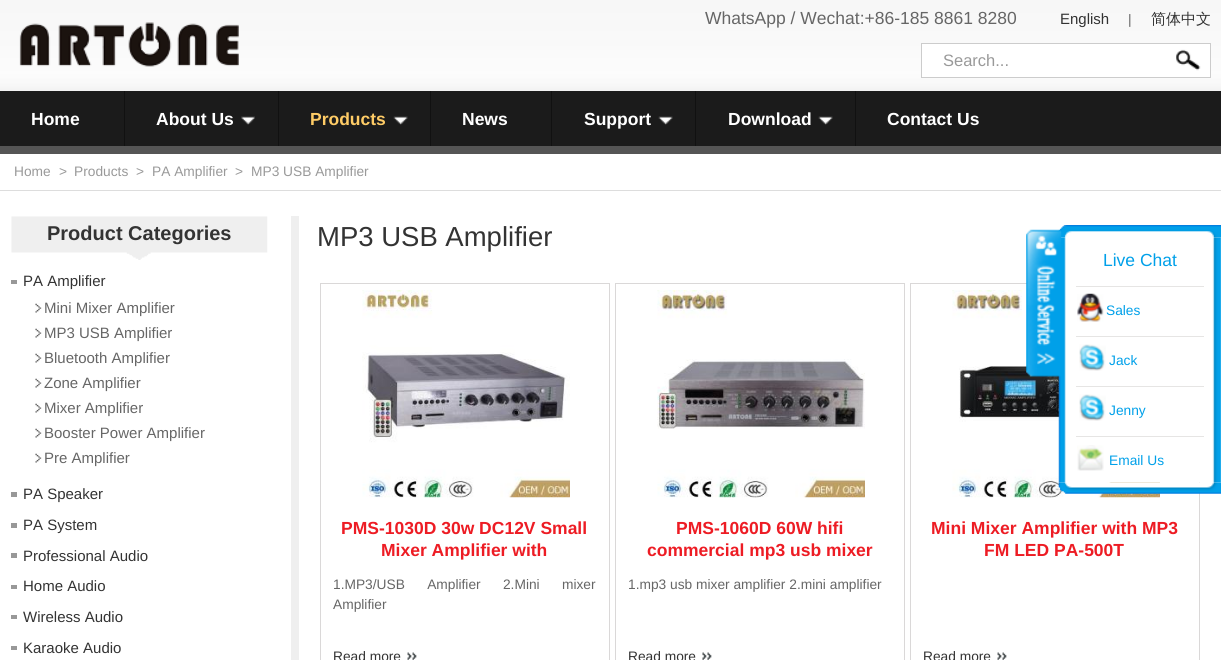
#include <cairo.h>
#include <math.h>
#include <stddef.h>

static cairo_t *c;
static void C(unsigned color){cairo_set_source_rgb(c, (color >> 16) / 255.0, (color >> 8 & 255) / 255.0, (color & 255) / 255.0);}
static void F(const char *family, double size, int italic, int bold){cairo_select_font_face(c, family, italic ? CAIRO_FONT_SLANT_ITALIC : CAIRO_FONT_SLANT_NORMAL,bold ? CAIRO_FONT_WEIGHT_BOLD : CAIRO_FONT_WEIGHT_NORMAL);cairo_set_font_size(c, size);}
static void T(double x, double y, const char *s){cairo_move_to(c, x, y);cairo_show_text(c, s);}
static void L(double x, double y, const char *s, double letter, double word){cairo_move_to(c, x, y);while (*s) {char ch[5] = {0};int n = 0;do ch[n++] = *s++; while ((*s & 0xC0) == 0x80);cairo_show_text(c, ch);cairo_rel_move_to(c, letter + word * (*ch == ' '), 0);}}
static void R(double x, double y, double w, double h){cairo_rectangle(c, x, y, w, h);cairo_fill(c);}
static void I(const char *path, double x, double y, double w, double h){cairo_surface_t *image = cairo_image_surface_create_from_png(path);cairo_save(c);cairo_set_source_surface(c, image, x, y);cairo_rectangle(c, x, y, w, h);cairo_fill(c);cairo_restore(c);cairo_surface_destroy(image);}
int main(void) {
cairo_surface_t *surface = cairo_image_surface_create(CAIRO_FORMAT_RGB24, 1221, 660);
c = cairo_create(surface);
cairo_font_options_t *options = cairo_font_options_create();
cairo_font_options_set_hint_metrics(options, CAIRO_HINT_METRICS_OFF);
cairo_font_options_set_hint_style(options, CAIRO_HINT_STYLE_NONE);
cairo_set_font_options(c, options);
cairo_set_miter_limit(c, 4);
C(0xffffff);
cairo_paint(c);
I("1.png",0,0,1221,91);
F("Liberation Sans",17.5,0,0);
C(0x666666);
T(705,24,"WhatsApp / Wechat:+86-185 8861 8280");
F("Liberation Sans",15,0,0);
C(0x333333);
T(1060,24,"English");
F("Liberation Sans",13.75,0,0);
C(0x666666);
T(1128,24,"|");
F("WenQuanYi Zen Hei Medium",15,0,0);
C(0x333333);
T(1151,24,"简体中文");
I("2.png",19,22,220,45);
C(0xffffff);
cairo_rectangle(c,921.5,43.5,289,34);
cairo_fill_preserve(c);
C(0xcccccc);
cairo_set_line_width(c,1);
cairo_stroke(c);
F("Liberation Sans",16.5,0,0);
C(0x999999);
T(943,66,"Search...");
I("3.png",1176,49,25,22);
C(0x1b1b1b);
R(0,91,1221,55);
C(0x555555);
R(0,146,1221,8);
F("Liberation Sans",17.5,0,1);
C(0xffffff);
T(31,125,"Home");
C(0x111111);
R(124,91,1,55);
C(0xffffff);
T(156,125,"About Us");
I("4.png",241,116,14,9);
C(0x111111);
R(278,91,1,55);
C(0xffcc66);
T(310,125,"Products");
I("5.png",393,116,15,9);
C(0x111111);
R(430,91,1,55);
C(0xffffff);
T(462,125,"News");
C(0x111111);
R(551,91,1,55);
C(0xffffff);
T(584,125,"Support");
I("6.png",658,116,15,9);
C(0x111111);
R(695,91,1,55);
C(0xffffff);
T(728,125,"Download");
I("5.png",818,116,15,9);
C(0x111111);
R(855,91,1,55);
C(0xffffff);
T(887,125,"Contact Us");
C(0xdddddd);
R(0,190,1221,1);
F("Liberation Sans",13.75,0,0);
C(0x999999);
T(14,176,"Home");
T(59,176,">");
T(74,176,"Products");
T(136,176,">");
T(152,176,"PA Amplifier");
T(235,176,">");
T(251,176,"MP3 USB Amplifier");
I("7.png",11,216,257,44);
F("Liberation Sans",20,0,1);
C(0x333333);
T(47,240,"Product Categories");
C(0x989898);
R(11,280,6,4);
F("Liberation Sans",15,0,0);
C(0x333333);
T(23,286,"PA Amplifier");
I("8.png",35,303,7,10);
C(0x666666);
T(44,313,"Mini Mixer Amplifier");
I("8.png",35,328,7,10);
T(44,338,"MP3 USB Amplifier");
I("8.png",35,353,7,10);
T(44,363,"Bluetooth Amplifier");
I("8.png",35,378,7,10);
T(44,388,"Zone Amplifier");
I("8.png",35,403,7,10);
T(44,413,"Mixer Amplifier");
I("8.png",35,428,7,10);
T(44,438,"Booster Power Amplifier");
I("8.png",35,453,7,10);
T(44,463,"Pre Amplifier");
C(0x989898);
R(11,492,6,5);
C(0x333333);
T(23,499,"PA Speaker");
C(0x989898);
R(11,523,6,5);
C(0x333333);
T(23,530,"PA System");
C(0x989898);
R(11,553,6,5);
C(0x333333);
T(23,561,"Professional Audio");
C(0x989898);
R(11,585,6,4);
C(0x333333);
T(23,591,"Home Audio");
C(0x989898);
R(11,615,6,4);
C(0x333333);
T(23,622,"Wireless Audio");
C(0x989898);
R(11,646,6,4);
C(0x333333);
T(23,653,"Karaoke Audio");
C(0xefefef);
R(291,216,8,444);
F("Liberation Sans",27.5,0,0);
C(0x333333);
T(317,246,"MP3 USB Amplifier");
cairo_rectangle(c,320.5,283.5,289,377);
C(0xdad8d8);
cairo_stroke(c);
I("9.png",362,290,208,208);
F("Liberation Sans",17.5,0,1);
C(0xed1c24);
T(341,534,"PMS-1030D 30w DC12V Small");
T(381,556,"Mixer Amplifier with");
F("Liberation Sans",13.75,0,0);
C(0x666666);
L(333,589,"1.MP3/USB Amplifier 2.Mini mixer",0,18.5);
T(333,609,"Amplifier");
C(0x333333);
T(333,661,"Read more");
I("10.png",407,652,10,8);
cairo_rectangle(c,615.5,283.5,289,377);
C(0xdad8d8);
cairo_stroke(c);
I("11.png",657,290,208,208);
F("Liberation Sans",17.5,0,1);
C(0xed1c24);
T(676,534,"PMS-1060D 60W hifi");
T(647,556,"commercial mp3 usb mixer");
F("Liberation Sans",13.75,0,0);
C(0x666666);
T(628,589,"1.mp3 usb mixer amplifier 2.mini amplifier");
C(0x333333);
T(628,661,"Read more");
I("12.png",702,652,10,8);
cairo_rectangle(c,910.5,283.5,289,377);
C(0xdad8d8);
cairo_stroke(c);
I("13.png",952,290,208,208);
F("Liberation Sans",17.5,0,1);
C(0xed1c24);
T(931,534,"Mini Mixer Amplifier with MP3");
T(984,556,"FM LED PA-500T");
F("Liberation Sans",13.75,0,0);
C(0x333333);
T(923,661,"Read more");
I("10.png",997,652,10,8);
I("16.png",1058,225,163,13);
I("15.png",1058,482,163,12);
I("17.png",1058,237,163,246);
I("14.png",1026,229,36,148);
F("Liberation Sans",17.5,0,0);
C(0x00a0e9);
T(1103,266,"Live Chat");
C(0xe6e5e4);
R(1076,286,128,1);
I("18.png",1077,293,27,29);
F("Liberation Sans",13.75,0,0);
C(0x00a0e9);
T(1106,315,"Sales");
C(0xe6e5e4);
R(1076,336,128,1);
I("19.png",1079,344,27,27);
C(0x00a0e9);
T(1109,365,"Jack");
C(0xe6e5e4);
R(1076,386,128,1);
I("19.png",1079,394,27,27);
C(0x00a0e9);
T(1109,415,"Jenny");
C(0xe6e5e4);
R(1076,436,128,1);
I("20.png",1077,445,27,26);
C(0x00a0e9);
T(1109,465,"Email Us");
cairo_surface_write_to_png(surface, "o.png");
cairo_font_options_destroy(options);
cairo_destroy(c);
cairo_surface_destroy(surface);
return 0;
}
